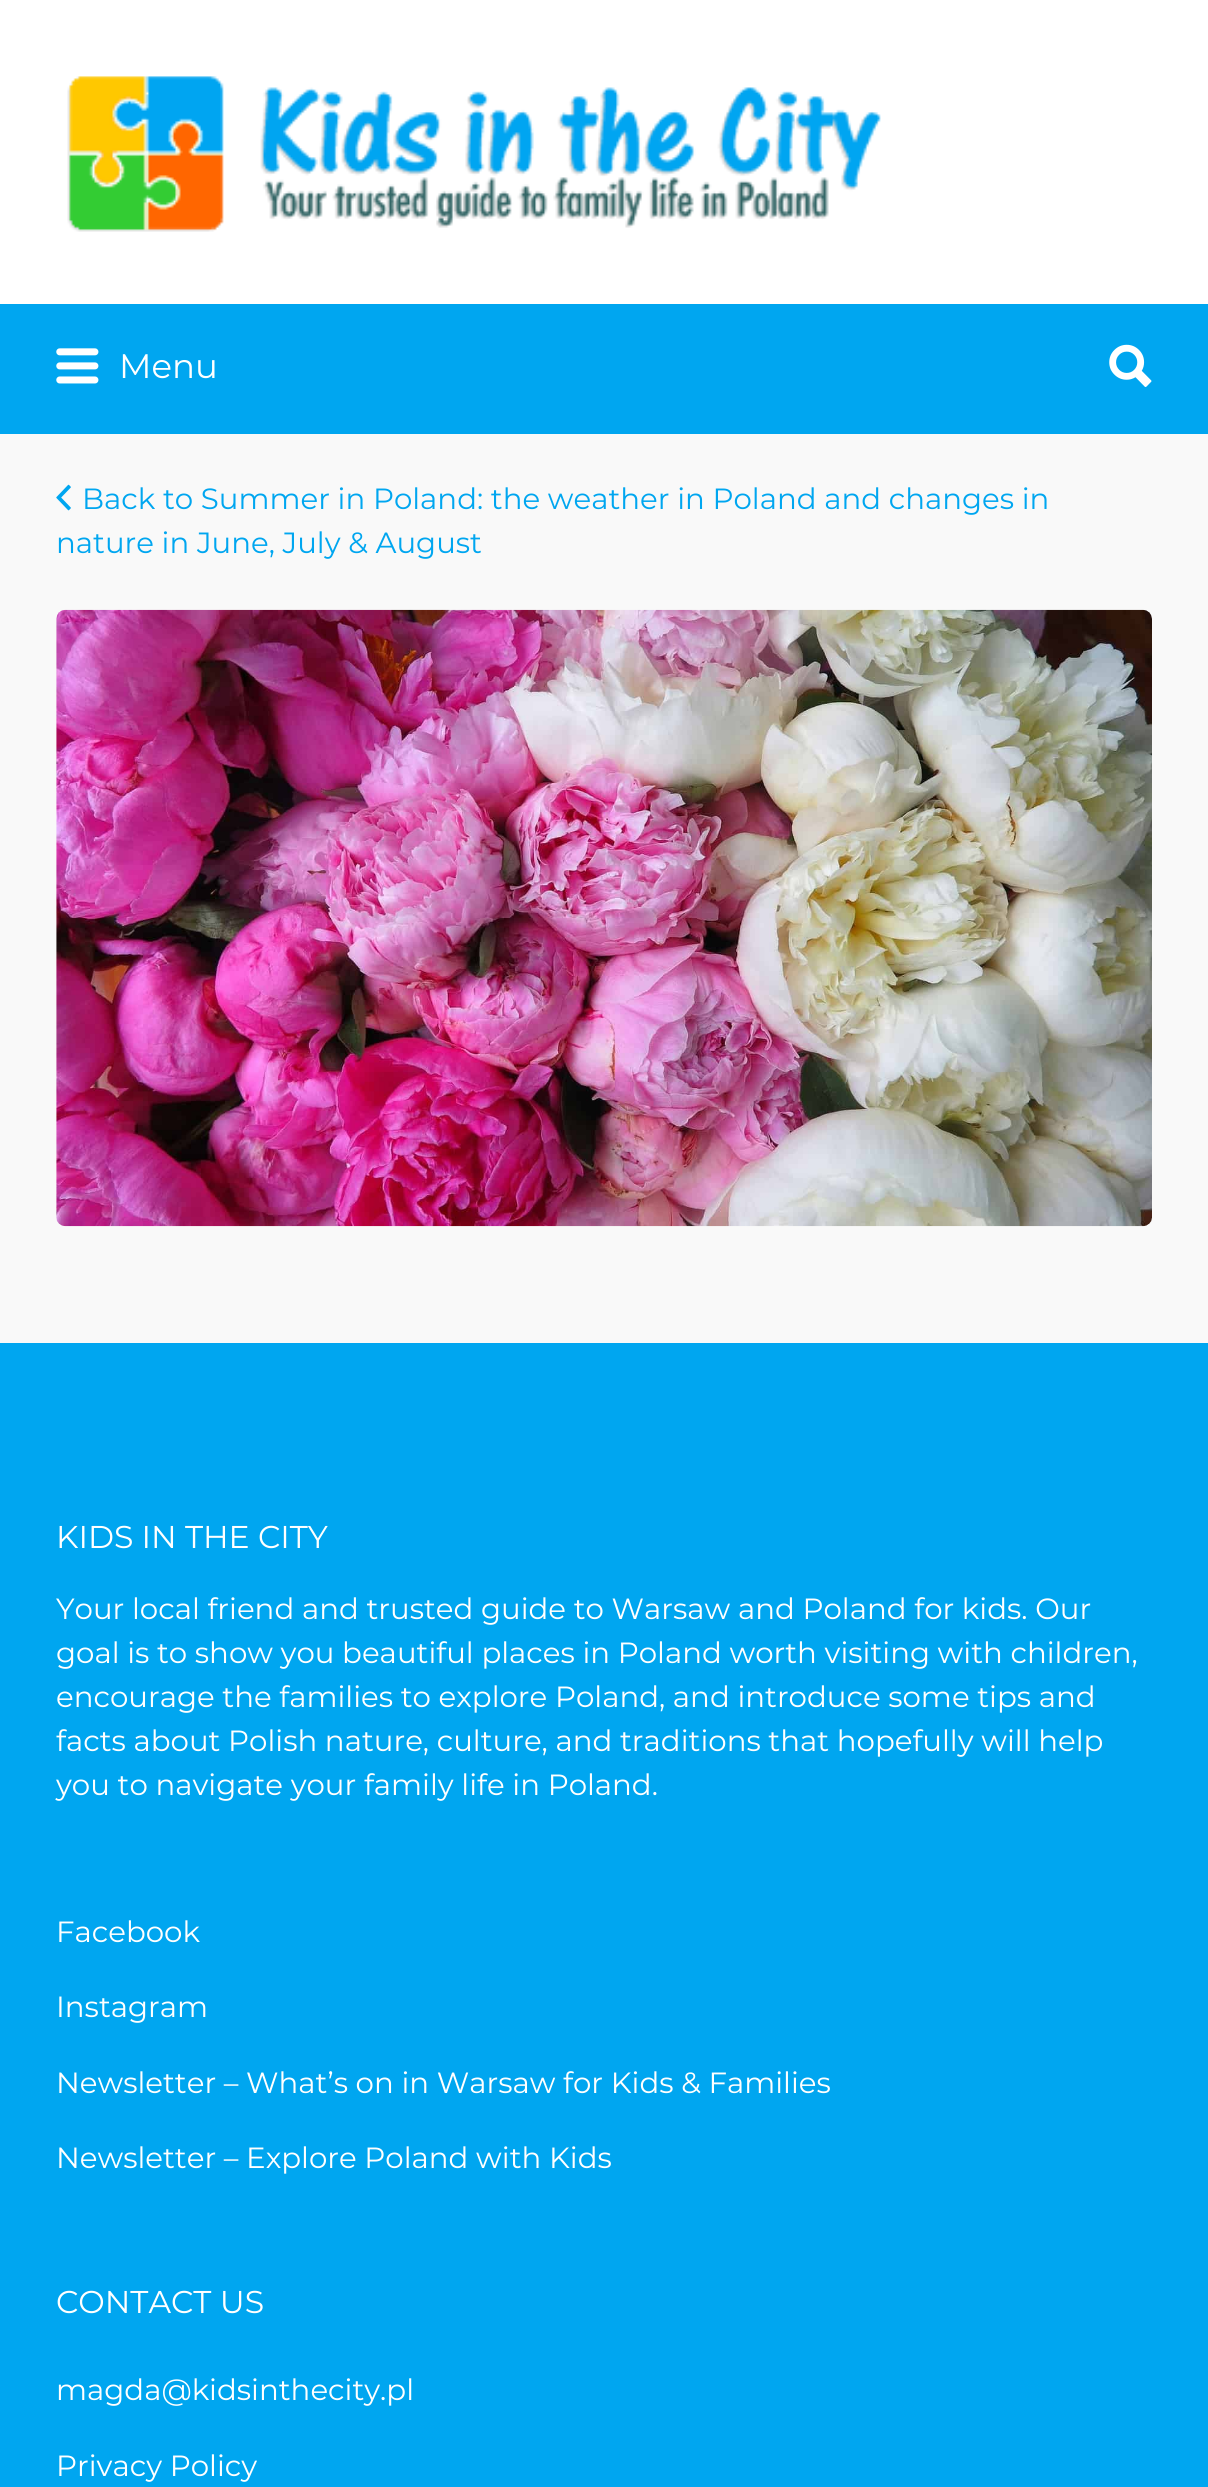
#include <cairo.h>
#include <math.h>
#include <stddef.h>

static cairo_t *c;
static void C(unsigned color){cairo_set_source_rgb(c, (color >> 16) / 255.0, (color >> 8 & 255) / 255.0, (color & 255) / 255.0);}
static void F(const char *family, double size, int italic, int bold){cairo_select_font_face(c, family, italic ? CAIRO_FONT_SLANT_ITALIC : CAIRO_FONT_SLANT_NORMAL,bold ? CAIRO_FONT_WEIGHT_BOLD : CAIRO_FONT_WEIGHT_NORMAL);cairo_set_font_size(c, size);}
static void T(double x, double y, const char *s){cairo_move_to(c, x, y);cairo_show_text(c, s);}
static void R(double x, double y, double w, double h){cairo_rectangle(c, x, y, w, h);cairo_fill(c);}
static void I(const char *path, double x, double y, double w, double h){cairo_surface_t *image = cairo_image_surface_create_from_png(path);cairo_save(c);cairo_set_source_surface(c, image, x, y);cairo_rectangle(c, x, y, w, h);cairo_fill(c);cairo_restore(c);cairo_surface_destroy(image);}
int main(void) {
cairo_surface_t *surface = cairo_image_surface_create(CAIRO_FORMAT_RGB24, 1208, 2487);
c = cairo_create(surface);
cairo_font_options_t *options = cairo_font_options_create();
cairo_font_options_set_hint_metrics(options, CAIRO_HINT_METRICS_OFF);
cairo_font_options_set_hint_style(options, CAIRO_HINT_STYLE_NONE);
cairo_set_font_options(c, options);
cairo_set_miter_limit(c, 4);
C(0xf9f9f9);
cairo_paint(c);
C(0xffffff);
R(0,0,1208,304);
I("1.png",67,76,814,156);
C(0x00a6f0);
R(0,304,1208,130);
I("2.png",56,348,43,36);
F("Montserrat",34,0,0);
C(0xffffff);
T(119,378,"Menu");
I("3.png",1109,344,43,43);
I("4.png",56,484,15,27);
F("Montserrat",29.25,0,0);
C(0x00a6f0);
T(82,509,"Back to Summer in Poland: the weather in Poland and changes in");
T(56,553,"nature in June, July & August");
I("5.png",56,609,1096,618);
R(0,1343,1208,1144);
F("Montserrat",31.5,0,0);
C(0xffffff);
T(56,1548,"KIDS IN THE CITY");
F("Montserrat",29.25,0,0);
T(56,1619,"Your local friend and trusted guide to Warsaw and Poland for kids. Our");
T(56,1663,"goal is to show you beautiful places in Poland worth visiting with children,");
T(56,1707,"encourage the families to explore Poland, and introduce some tips and");
T(56,1751,"facts about Polish nature, culture, and traditions that hopefully will help");
T(56,1795,"you to navigate your family life in Poland.");
T(56,1942,"Facebook");
T(56,2017,"Instagram");
T(56,2093,"Newsletter – What’s on in Warsaw for Kids & Families");
T(56,2168,"Newsletter – Explore Poland with Kids");
F("Montserrat",31.5,0,0);
T(56,2313,"CONTACT US");
F("Montserrat",29.25,0,0);
T(56,2400,"magda@kidsinthecity.pl");
T(56,2476,"Privacy Policy");
cairo_surface_write_to_png(surface, "o.png");
cairo_font_options_destroy(options);
cairo_destroy(c);
cairo_surface_destroy(surface);
return 0;
}
